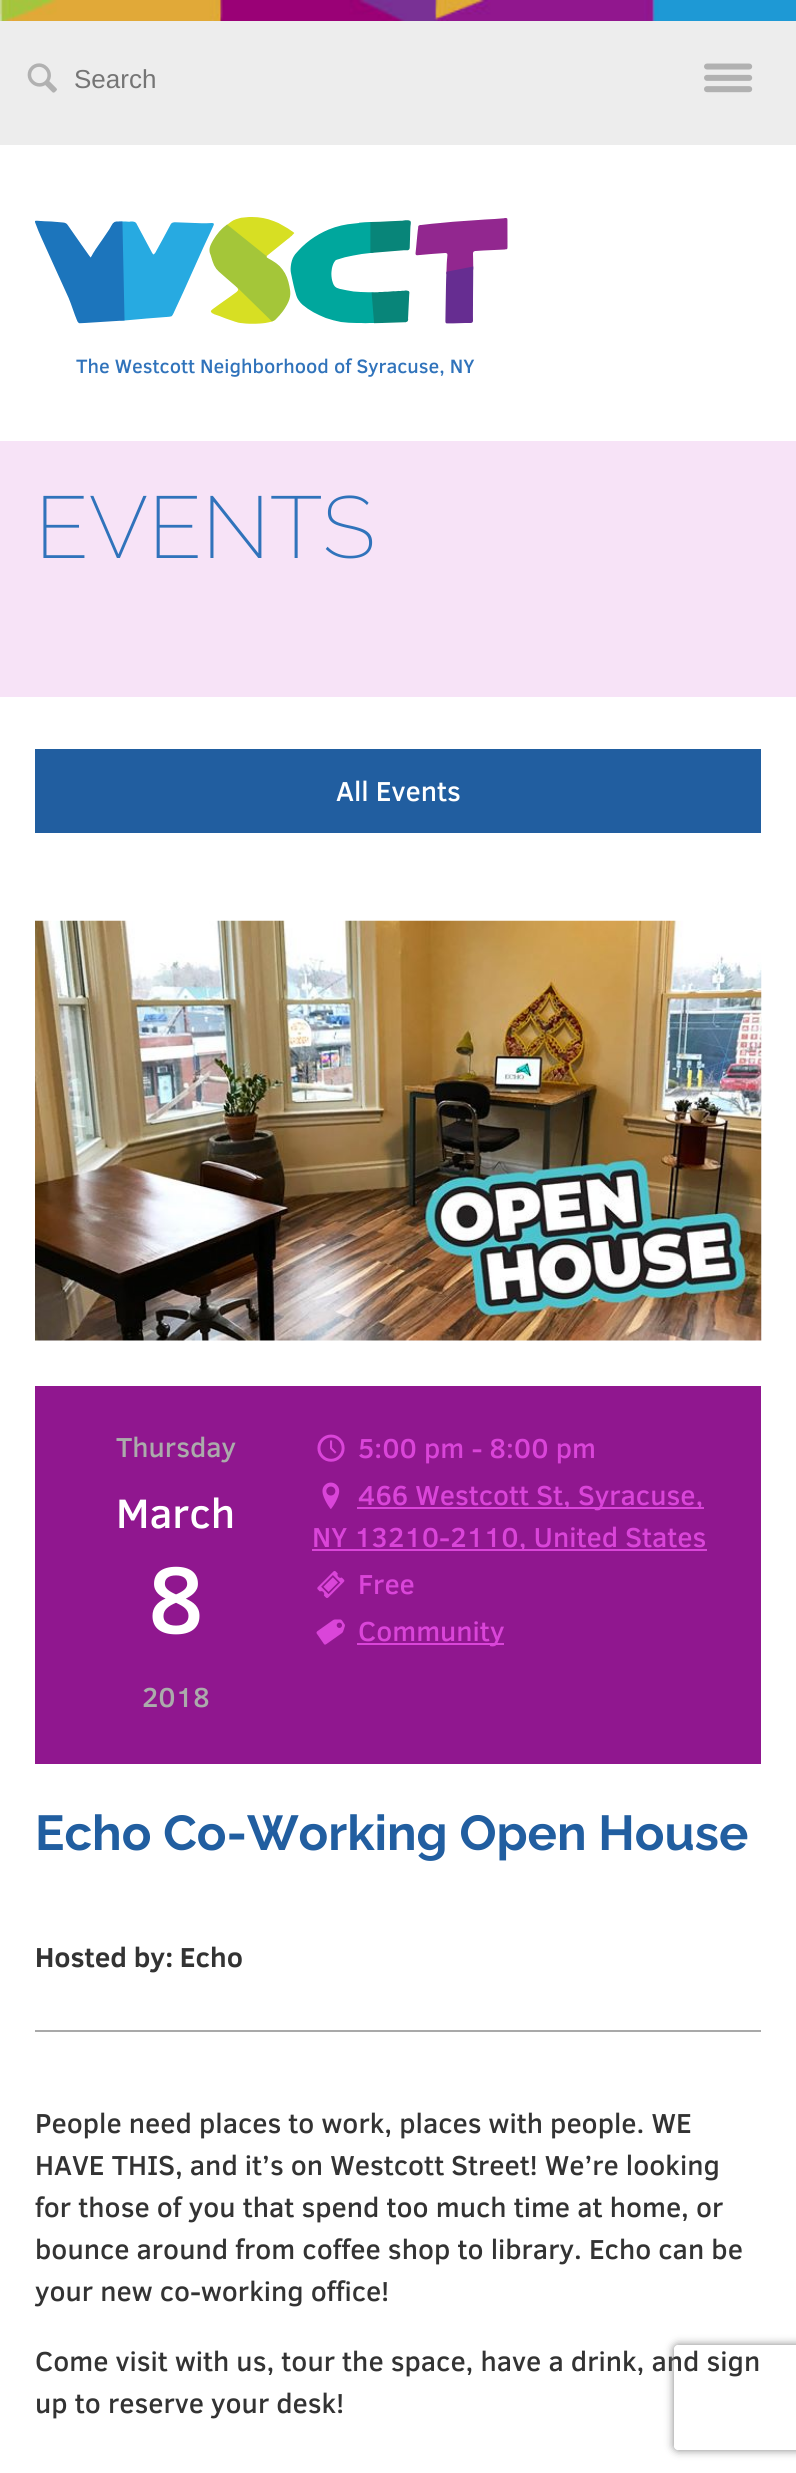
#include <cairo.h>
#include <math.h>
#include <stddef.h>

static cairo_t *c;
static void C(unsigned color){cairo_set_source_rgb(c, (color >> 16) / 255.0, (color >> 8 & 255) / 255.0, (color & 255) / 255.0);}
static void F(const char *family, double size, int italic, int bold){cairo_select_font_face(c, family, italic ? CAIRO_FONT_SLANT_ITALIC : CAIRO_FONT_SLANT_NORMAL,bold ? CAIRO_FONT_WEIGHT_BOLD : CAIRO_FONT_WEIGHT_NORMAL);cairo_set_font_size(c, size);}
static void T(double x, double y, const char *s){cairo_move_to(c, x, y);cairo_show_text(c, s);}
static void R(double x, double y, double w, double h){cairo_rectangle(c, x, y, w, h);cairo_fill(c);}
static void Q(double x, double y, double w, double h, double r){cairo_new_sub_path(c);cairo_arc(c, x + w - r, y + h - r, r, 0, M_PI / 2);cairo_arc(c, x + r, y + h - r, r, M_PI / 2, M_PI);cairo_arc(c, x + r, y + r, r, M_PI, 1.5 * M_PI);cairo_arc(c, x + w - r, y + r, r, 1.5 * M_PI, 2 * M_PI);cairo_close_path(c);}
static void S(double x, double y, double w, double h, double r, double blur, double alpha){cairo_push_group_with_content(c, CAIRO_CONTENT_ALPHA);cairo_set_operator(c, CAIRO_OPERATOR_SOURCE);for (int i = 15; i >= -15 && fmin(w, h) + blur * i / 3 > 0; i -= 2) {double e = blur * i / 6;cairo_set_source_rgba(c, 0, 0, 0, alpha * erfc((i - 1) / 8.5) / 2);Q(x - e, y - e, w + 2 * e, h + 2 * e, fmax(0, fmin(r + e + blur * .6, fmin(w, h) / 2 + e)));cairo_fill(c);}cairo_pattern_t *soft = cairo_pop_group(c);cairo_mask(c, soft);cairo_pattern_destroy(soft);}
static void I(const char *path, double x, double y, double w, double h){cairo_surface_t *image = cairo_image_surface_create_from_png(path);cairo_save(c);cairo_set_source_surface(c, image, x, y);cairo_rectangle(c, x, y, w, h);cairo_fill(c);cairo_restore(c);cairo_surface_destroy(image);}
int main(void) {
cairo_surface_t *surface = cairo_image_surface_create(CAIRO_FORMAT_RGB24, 796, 2473);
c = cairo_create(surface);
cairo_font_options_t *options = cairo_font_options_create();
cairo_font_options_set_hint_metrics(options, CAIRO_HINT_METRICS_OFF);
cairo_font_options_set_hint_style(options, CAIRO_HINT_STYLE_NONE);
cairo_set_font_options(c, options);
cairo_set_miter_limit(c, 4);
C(0xffffff);
cairo_paint(c);
C(0xededed);
R(0,21,796,124);
I("1.png",0,0,796,21);
I("2.png",27,63,30,30);
F("Liberation Sans",26,0,0);
C(0x757575);
T(74,88,"Search");
I("3.png",704,63,49,30);
I("4.png",35,217,473,107);
F("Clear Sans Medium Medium",19.75,0,0);
C(0x3073bb);
T(76,373,"The Westcott Neighborhood of Syracuse, NY");
C(0xf7e3f7);
R(0,441,796,256);
F("Raleway ExtraLight",87.5,0,0);
C(0x3073bb);
T(35,558,"EVENTS");
C(0x215ea0);
R(35,749,726,84);
F("Clear Sans Medium Medium",28,0,0);
C(0xffffff);
T(336,801,"All Events");
I("5.png",35,920,727,421);
C(0x90178f);
R(35,1386,726,378);
C(0xababab);
T(116,1457,"Thursday");
F("Clear Sans Medium Medium",42,0,0);
C(0xffffff);
T(116,1528,"March");
F("Clear Sans Medium Medium",96,0,0);
T(148,1633,"8");
F("Clear Sans Medium Medium",28,0,0);
C(0xababab);
T(142,1707,"2018");
I("6.png",317,1434,28,28);
C(0xda45d9);
T(358,1458,"5:00 pm - 8:00 pm");
I("7.png",322,1482,18,27);
R(357,1507,347,2);
T(358,1505,"466 Westcott St, Syracuse,");
R(312,1549,395,2);
T(312,1547,"NY 13210-2110, United States");
I("8.png",317,1571,28,27);
T(358,1594,"Free");
I("9.png",316,1619,29,26);
R(357,1643,147,2);
T(358,1641,"Community");
F("Raleway",49,0,1);
C(0x215ea0);
T(35,1850,"Echo Co-Working Open House");
C(0xa9a9a9);
R(35,2030,726,2);
F("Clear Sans",28,0,1);
C(0x333333);
T(35,1967,"Hosted by: Echo");
F("Clear Sans Medium Medium",28,0,0);
T(35,2133,"People need places to work, places with people. WE");
T(35,2175,"HAVE THIS, and it’s on Westcott Street! We’re looking");
T(35,2217,"for those of you that spend too much time at home, or");
T(35,2259,"bounce around from coffee shop to library. Echo can be");
T(35,2301,"your new co-working office!");
T(35,2371,"Come visit with us, tour the space, have a drink, and sign");
T(35,2413,"up to reserve your desk!");
cairo_save(c);
cairo_set_fill_rule(c,CAIRO_FILL_RULE_EVEN_ODD);
cairo_new_path(c);
cairo_move_to(c,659,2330);
cairo_line_to(c,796,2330);
cairo_line_to(c,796,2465);
cairo_line_to(c,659,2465);
cairo_close_path(c);
cairo_move_to(c,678,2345);
cairo_line_to(c,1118,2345);
cairo_curve_to(c,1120,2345,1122,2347,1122,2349);
cairo_line_to(c,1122,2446);
cairo_curve_to(c,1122,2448,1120,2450,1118,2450);
cairo_line_to(c,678,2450);
cairo_curve_to(c,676,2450,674,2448,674,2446);
cairo_line_to(c,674,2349);
cairo_curve_to(c,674,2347,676,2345,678,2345);
cairo_close_path(c);
cairo_clip(c);
C(0x808080);
S(674,2345,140,105,4,4.5,1);
cairo_restore(c);
cairo_surface_write_to_png(surface, "o.png");
cairo_font_options_destroy(options);
cairo_destroy(c);
cairo_surface_destroy(surface);
return 0;
}
